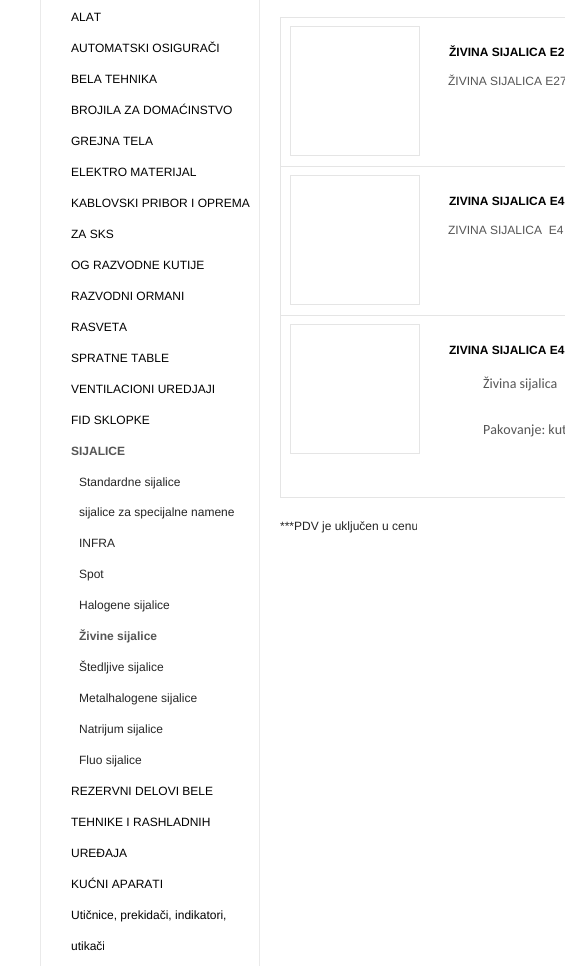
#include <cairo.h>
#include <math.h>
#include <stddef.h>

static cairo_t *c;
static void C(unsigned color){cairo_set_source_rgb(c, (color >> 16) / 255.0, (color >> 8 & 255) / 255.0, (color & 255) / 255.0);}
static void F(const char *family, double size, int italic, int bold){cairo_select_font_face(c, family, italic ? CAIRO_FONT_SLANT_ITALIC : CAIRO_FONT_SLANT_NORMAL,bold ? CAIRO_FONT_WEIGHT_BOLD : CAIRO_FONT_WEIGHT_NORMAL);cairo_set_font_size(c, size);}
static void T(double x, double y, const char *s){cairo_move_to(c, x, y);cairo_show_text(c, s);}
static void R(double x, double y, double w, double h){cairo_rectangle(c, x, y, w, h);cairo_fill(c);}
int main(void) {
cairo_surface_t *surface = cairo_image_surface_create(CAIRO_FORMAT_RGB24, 565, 966);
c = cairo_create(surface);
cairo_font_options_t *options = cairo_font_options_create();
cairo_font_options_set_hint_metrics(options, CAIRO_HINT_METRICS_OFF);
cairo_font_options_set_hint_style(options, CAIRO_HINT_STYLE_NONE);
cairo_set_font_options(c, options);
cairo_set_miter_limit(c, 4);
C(0xffffff);
cairo_paint(c);
cairo_rectangle(c,40.5,-.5,219,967);
C(0xeaeaea);
cairo_set_line_width(c,1);
cairo_stroke(c);
F("Liberation Sans",12,0,0);
C(0x000000);
T(71,21,"ALAT");
T(71,52,"AUTOMATSKI OSIGURAČI");
T(71,83,"BELA TEHNIKA");
T(71,114,"BROJILA ZA DOMAĆINSTVO");
T(71,145,"GREJNA TELA");
T(71,176,"ELEKTRO MATERIJAL");
T(71,207,"KABLOVSKI PRIBOR I OPREMA");
T(71,238,"ZA SKS");
T(71,269,"OG RAZVODNE KUTIJE");
T(71,300,"RAZVODNI ORMANI");
T(71,331,"RASVETA");
T(71,362,"SPRATNE TABLE");
T(71,393,"VENTILACIONI UREDJAJI");
T(71,424,"FID SKLOPKE");
F("Liberation Sans",12,0,1);
C(0x555555);
T(71,455,"SIJALICE");
F("Liberation Sans",12,0,0);
C(0x252525);
T(79,486,"Standardne sijalice");
T(79,516,"sijalice za specijalne namene");
T(79,547,"INFRA");
T(79,578,"Spot");
T(79,609,"Halogene sijalice");
F("Liberation Sans",12,0,1);
C(0x555555);
T(79,640,"Živine sijalice");
F("Liberation Sans",12,0,0);
C(0x252525);
T(79,671,"Štedljive sijalice");
T(79,702,"Metalhalogene sijalice");
T(79,733,"Natrijum sijalice");
T(79,764,"Fluo sijalice");
C(0x000000);
T(71,795,"REZERVNI DELOVI BELE");
T(71,826,"TEHNIKE I RASHLADNIH");
T(71,857,"UREĐAJA");
T(71,888,"KUĆNI APARATI");
T(71,919,"Utičnice, prekidači, indikatori,");
T(71,950,"utikači");
C(0xe5e5e5);
R(280,497,285,1);
R(280,17,285,1);
R(280,17,1,149);
cairo_rectangle(c,290.5,26.5,129,129);
cairo_stroke(c);
F("Liberation Sans",12,0,1);
C(0x000000);
T(449,56,"ŽIVINA SIJALICA E2");
F("Liberation Sans",12,0,0);
C(0x555555);
T(448,85,"ŽIVINA SIJALICA E27");
C(0xe5e5e5);
R(280,166,285,1);
R(280,166,1,149);
cairo_rectangle(c,290.5,175.5,129,129);
cairo_stroke(c);
F("Liberation Sans",12,0,1);
C(0x000000);
T(449,205,"ZIVINA SIJALICA E4");
F("Liberation Sans",12,0,0);
C(0x555555);
T(448,234,"ZIVINA SIJALICA  E4");
C(0xe5e5e5);
R(280,315,285,1);
R(280,315,1,182);
cairo_rectangle(c,290.5,324.5,129,129);
cairo_stroke(c);
F("Liberation Sans",12,0,1);
C(0x000000);
T(449,354,"ZIVINA SIJALICA E4");
F("Carlito",14,0,0);
C(0x555555);
T(483,388,"Živina sijalica");
T(483,434,"Pakovanje: kut");
F("Liberation Sans",12,0,0);
C(0x252525);
T(280,530,"***PDV je uključen u cenu");
cairo_surface_write_to_png(surface, "o.png");
cairo_font_options_destroy(options);
cairo_destroy(c);
cairo_surface_destroy(surface);
return 0;
}
